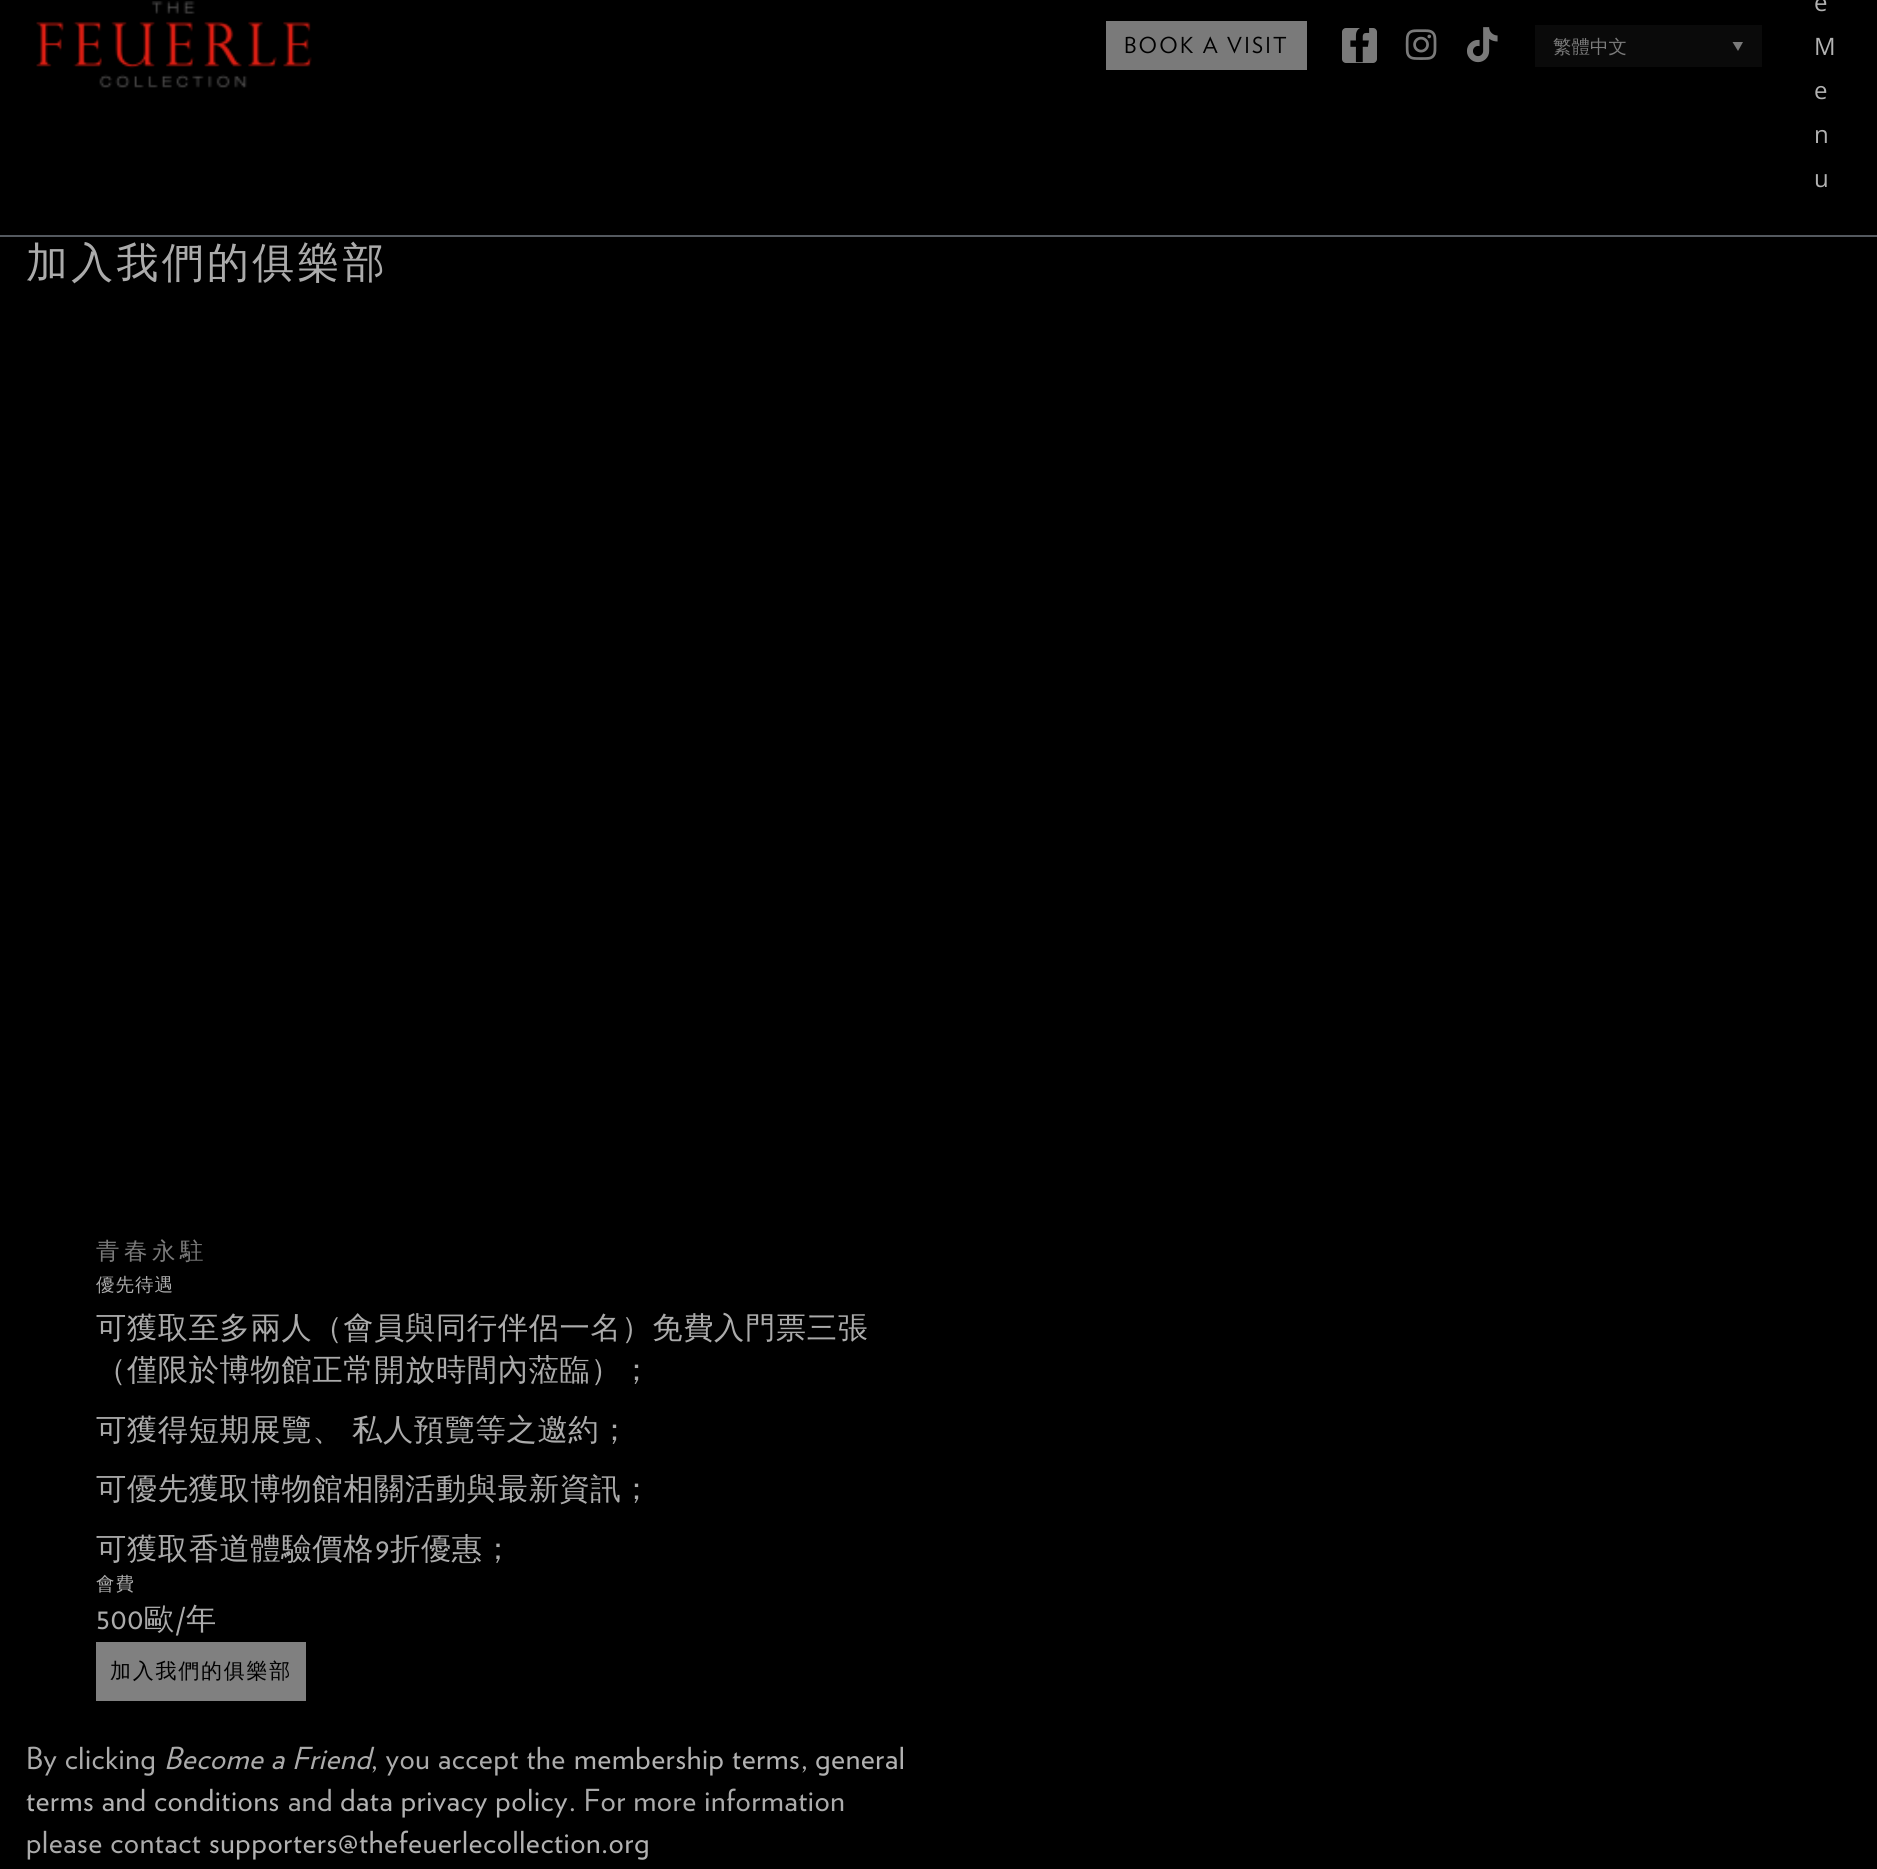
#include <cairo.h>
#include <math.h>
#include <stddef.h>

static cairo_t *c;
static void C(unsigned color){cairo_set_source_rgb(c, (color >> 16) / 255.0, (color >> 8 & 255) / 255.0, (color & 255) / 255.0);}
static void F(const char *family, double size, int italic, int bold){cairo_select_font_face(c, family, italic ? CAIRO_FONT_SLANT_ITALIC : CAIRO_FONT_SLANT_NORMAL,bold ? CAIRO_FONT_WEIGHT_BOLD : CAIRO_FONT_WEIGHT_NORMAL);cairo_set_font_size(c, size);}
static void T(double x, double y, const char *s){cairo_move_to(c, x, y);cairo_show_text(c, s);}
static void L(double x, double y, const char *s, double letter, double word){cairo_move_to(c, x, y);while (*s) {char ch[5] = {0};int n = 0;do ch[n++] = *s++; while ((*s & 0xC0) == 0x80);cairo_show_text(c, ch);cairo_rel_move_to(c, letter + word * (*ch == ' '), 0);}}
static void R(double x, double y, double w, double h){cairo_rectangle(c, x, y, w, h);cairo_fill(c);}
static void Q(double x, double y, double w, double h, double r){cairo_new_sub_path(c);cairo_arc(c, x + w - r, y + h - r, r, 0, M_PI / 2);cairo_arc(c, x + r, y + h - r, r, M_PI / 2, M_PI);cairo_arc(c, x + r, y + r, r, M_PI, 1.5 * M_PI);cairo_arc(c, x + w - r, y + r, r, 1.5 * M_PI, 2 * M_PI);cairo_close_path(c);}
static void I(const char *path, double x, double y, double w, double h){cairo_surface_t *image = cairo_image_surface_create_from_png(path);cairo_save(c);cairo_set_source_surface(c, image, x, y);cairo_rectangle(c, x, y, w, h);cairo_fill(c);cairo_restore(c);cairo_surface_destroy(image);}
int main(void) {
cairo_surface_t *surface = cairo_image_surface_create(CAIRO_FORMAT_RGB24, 1877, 1869);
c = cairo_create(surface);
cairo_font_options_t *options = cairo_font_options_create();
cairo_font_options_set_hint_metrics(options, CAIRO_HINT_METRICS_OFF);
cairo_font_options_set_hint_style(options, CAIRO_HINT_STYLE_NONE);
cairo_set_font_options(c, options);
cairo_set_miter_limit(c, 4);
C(0x000000);
cairo_paint(c);
C(0x54595f);
R(0,235,1877,2);
I("1.png",36,1,276,87);
C(0x7a7a7a);
R(1106,21,201,49);
F("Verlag",22,0,0);
C(0x000000);
L(1124,53,"BOOK A VISIT",2.25,0);
C(0x7a7a7a);
Q(1342,28,35,35,4);
cairo_fill(c);
I("2.png",1350,28,20,35);
I("3.png",1405,29,32,31);
I("4.png",1467,27,31,36);
C(0x0a0a0a);
R(1535,25,227,42);
F("WenQuanYi Zen Hei Medium",18.5,0,0);
C(0x7a7a7a);
T(1553,53,"繁體中文");
cairo_new_path(c);
cairo_move_to(c,1732.5,42);
cairo_line_to(c,1743,42);
cairo_line_to(c,1738,51);
cairo_close_path(c);
cairo_fill(c);
F("Open Sans",24,0,0);
C(0xb2b2b2);
T(1814,11,"e");
T(1814,55,"M");
T(1814,99,"e");
T(1814,143,"n");
T(1814,187,"u");
F("WenQuanYi Zen Hei Medium",42,0,0);
C(0xababab);
L(26,277,"加入我們的俱樂部",3.25,0);
F("WenQuanYi Zen Hei Medium",23.5,0,0);
C(0x7a7a7a);
L(96,1259,"青春永駐",4.5,0);
F("WenQuanYi Zen Hei Medium",18.5,0,0);
C(0xababab);
L(96,1291,"優先待遇",1,0);
F("WenQuanYi Zen Hei Medium",30.3,0,0);
L(96,1338,"可獲取至多兩人（會員與同行伴侶一名）免費入門票三張",.6,0);
L(96,1380,"（僅限於博物館正常開放時間內蒞臨）；",.6,0);
L(96,1440,"可獲得短期展覽、",.6,0);
L(352,1440,"私人預覽等之邀約；",.6,0);
L(96,1499,"可優先獲取博物館相關活動與最新資訊；",.6,0);
L(96,1559,"可獲取香道體驗價格",.6,0);
F("Verlag",30.3,0,0);
L(375,1559,"9",.6,0);
F("WenQuanYi Zen Hei Medium",30.3,0,0);
L(390,1559,"折優惠；",.6,0);
F("WenQuanYi Zen Hei Medium",18.5,0,0);
L(96,1590,"會費",1,0);
F("Verlag",30.3,0,0);
L(96,1629,"500",.6,0);
F("WenQuanYi Zen Hei Medium",30.3,0,0);
L(144,1629,"歐",.6,0);
F("Verlag",30.3,0,0);
L(175,1629,"/",.6,0);
F("WenQuanYi Zen Hei Medium",30.3,0,0);
L(186,1629,"年",.6,0);
C(0x808080);
R(96,1642,210,59);
F("WenQuanYi Zen Hei Medium",21,0,0);
C(0x000000);
L(110,1678,"加入我們的俱樂部",1.75,0);
F("Verlag",30.3,0,0);
C(0xababab);
L(26,1769,"By clicking",.6,0);
F("Verlag",30.3,1,0);
L(164,1769,"Become a Friend",.6,0);
F("Verlag",30.3,0,0);
L(371,1769,", you accept the",.6,0);
C(0xb2b2b2);
L(574,1769,"membership terms",.6,0);
C(0xababab);
L(801,1769,",",.6,0);
C(0xb2b2b2);
L(815,1769,"general",.6,0);
L(26,1811,"terms and conditions",.6,0);
C(0xababab);
L(288,1811,"and",.6,0);
C(0xb2b2b2);
L(340,1811,"data privacy policy",.6,0);
C(0xababab);
L(569,1811,". For more information",.6,0);
L(26,1853,"please contact",.6,0);
C(0xb2b2b2);
L(209,1853,"supporters@thefeuerlecollection.org",.6,0);
cairo_surface_write_to_png(surface, "o.png");
cairo_font_options_destroy(options);
cairo_destroy(c);
cairo_surface_destroy(surface);
return 0;
}
